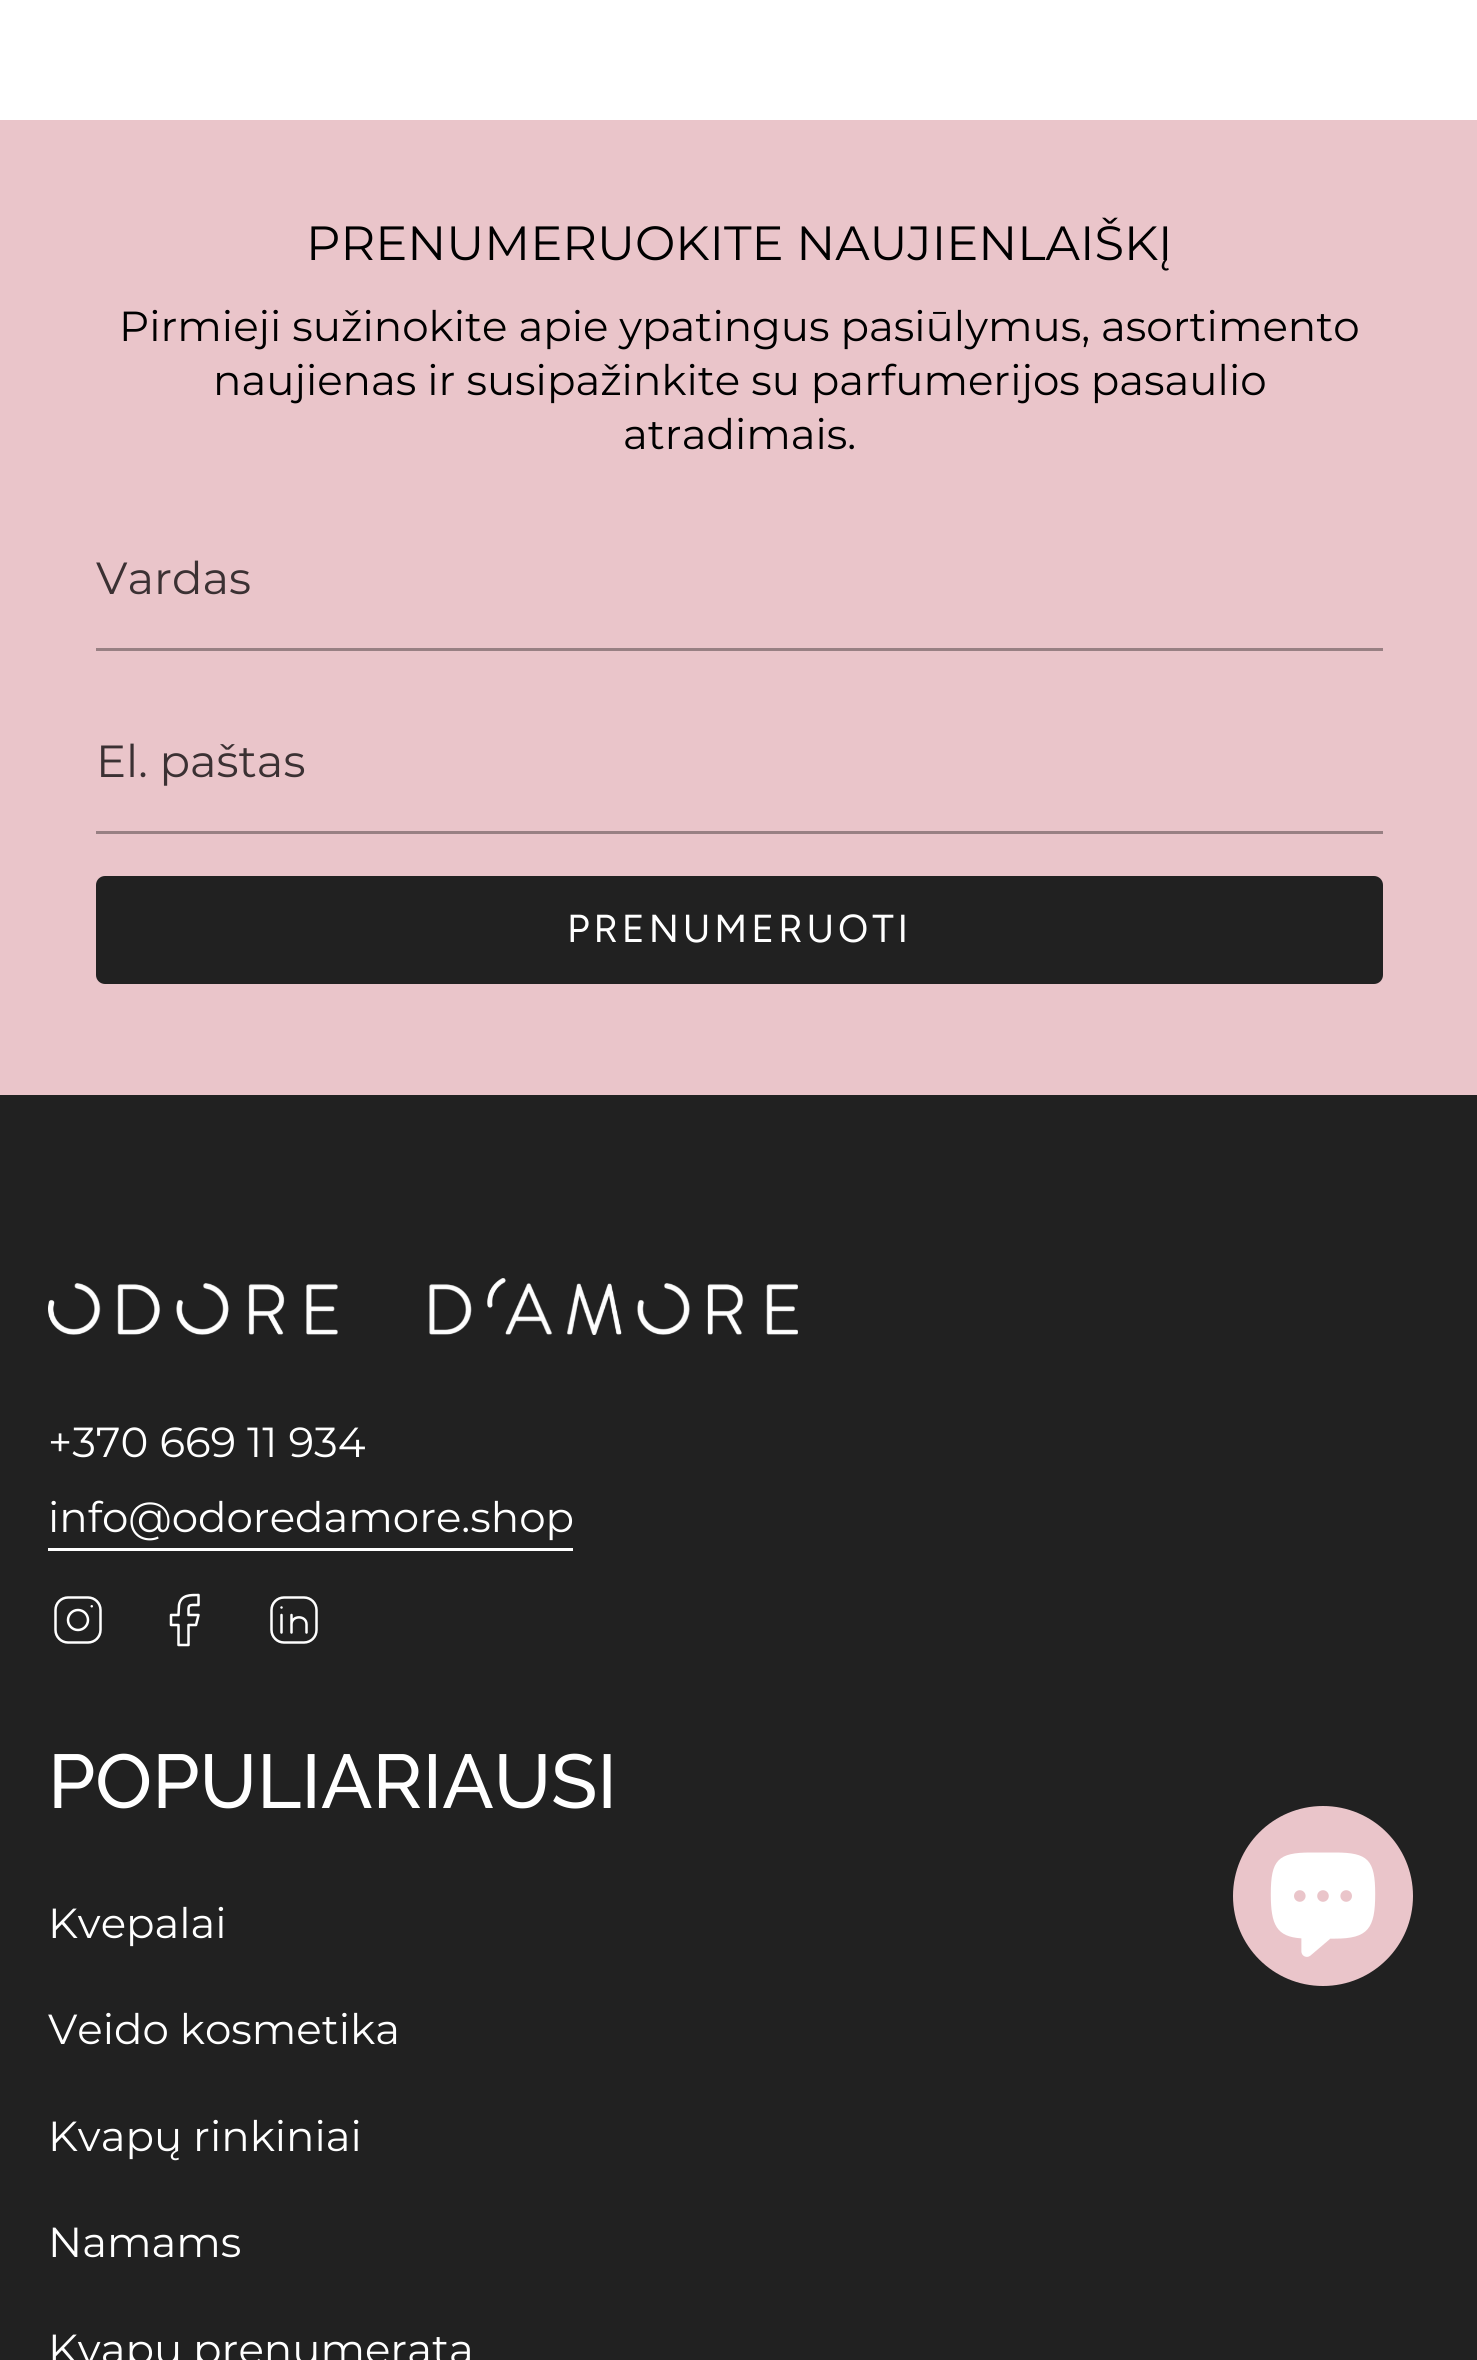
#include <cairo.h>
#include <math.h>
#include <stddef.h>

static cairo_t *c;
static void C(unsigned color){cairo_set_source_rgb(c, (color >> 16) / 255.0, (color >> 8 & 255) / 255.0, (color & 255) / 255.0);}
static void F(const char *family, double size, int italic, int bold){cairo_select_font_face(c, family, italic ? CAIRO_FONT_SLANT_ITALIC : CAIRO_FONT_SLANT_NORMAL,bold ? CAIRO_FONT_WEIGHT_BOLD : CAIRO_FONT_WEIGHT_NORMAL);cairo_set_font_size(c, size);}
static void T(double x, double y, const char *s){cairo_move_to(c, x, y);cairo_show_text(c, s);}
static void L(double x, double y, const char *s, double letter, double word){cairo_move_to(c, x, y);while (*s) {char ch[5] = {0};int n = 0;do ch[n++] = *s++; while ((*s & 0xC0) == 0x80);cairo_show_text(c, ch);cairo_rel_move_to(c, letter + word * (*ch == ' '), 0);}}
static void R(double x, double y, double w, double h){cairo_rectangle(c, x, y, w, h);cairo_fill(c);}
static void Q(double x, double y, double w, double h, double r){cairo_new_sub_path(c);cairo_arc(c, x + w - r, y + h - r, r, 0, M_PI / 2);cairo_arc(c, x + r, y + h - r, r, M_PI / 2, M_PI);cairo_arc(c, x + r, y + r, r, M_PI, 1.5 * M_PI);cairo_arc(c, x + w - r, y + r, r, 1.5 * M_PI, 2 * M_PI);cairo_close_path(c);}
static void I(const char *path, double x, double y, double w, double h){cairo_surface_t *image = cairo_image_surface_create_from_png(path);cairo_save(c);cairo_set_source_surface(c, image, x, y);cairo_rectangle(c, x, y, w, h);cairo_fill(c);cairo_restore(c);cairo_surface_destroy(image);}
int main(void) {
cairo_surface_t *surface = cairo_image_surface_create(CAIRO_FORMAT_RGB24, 1477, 2360);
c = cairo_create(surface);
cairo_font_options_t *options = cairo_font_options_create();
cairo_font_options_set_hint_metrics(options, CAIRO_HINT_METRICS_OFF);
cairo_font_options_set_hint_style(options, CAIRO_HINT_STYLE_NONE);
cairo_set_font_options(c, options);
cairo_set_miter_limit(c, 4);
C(0xffffff);
cairo_paint(c);
C(0xeac5ca);
R(0,120,1477,975);
F("Montserrat",48,0,0);
C(0x000000);
T(306,260,"PRENUMERUOKITE NAUJIENLAIŠKĮ");
F("Montserrat",42,0,0);
T(119,341,"Pirmieji sužinokite apie ypatingus pasiūlymus, asortimento");
T(213,395,"naujienas ir susipažinkite su parfumerijos pasaulio");
T(623,449,"atradimais.");
C(0x988083);
R(96,648,1287,3);
F("Montserrat",45,0,0);
C(0x3b3133);
T(96,594,"Vardas");
C(0x988083);
R(96,831,1287,3);
C(0x3b3133);
T(96,777,"El. paštas");
C(0x212121);
Q(97.5,877.5,1284,105,7.5);
cairo_fill_preserve(c);
cairo_set_line_width(c,3);
cairo_stroke(c);
F("Figtree",39,0,0);
C(0xffffff);
L(567,942,"PRENUMERUOTI",3.9,0);
C(0x212121);
R(0,1095,1477,1265);
I("1.png",48,1278,750,57);
F("Montserrat",42,0,0);
C(0xffffff);
T(48,1457,"+370 669 11 934");
T(48,1532,"info@odoredamore.shop");
R(48,1548,525,3);
I("2.png",54,1596,48,48);
cairo_new_path(c);
cairo_move_to(c,198.5,1595);
cairo_curve_to(c,190.5,1595,181,1594.5,179,1605);
cairo_line_to(c,178.5,1615);
cairo_line_to(c,171,1615);
cairo_line_to(c,171,1625);
cairo_line_to(c,178.5,1625);
cairo_line_to(c,178.5,1645);
cairo_line_to(c,188.5,1645);
cairo_line_to(c,188.5,1625);
cairo_line_to(c,196,1625);
cairo_line_to(c,198.5,1615);
cairo_line_to(c,188.5,1615);
cairo_curve_to(c,188.5,1604,187.5,1605,198.5,1605);
cairo_close_path(c);
cairo_set_line_width(c,2.5);
cairo_set_line_cap(c,CAIRO_LINE_CAP_ROUND);
cairo_set_line_join(c,CAIRO_LINE_JOIN_ROUND);
cairo_stroke(c);
I("3.png",270,1596,48,48);
F("Raleway Medium",76,0,0);
T(48,1808,"POPULIARIAUSI");
F("Montserrat",42,0,0);
T(48,1938,"Kvepalai");
T(48,2044,"Veido kosmetika");
T(48,2151,"Kvapų rinkiniai");
T(48,2257,"Namams");
T(48,2364,"Kvapų prenumerata");
C(0xeac5ca);
cairo_new_path(c);
cairo_arc(c,1323,1896,90,0,2 * M_PI);
cairo_fill(c);
I("4.png",1270,1852,106,105);
cairo_surface_write_to_png(surface, "o.png");
cairo_font_options_destroy(options);
cairo_destroy(c);
cairo_surface_destroy(surface);
return 0;
}
